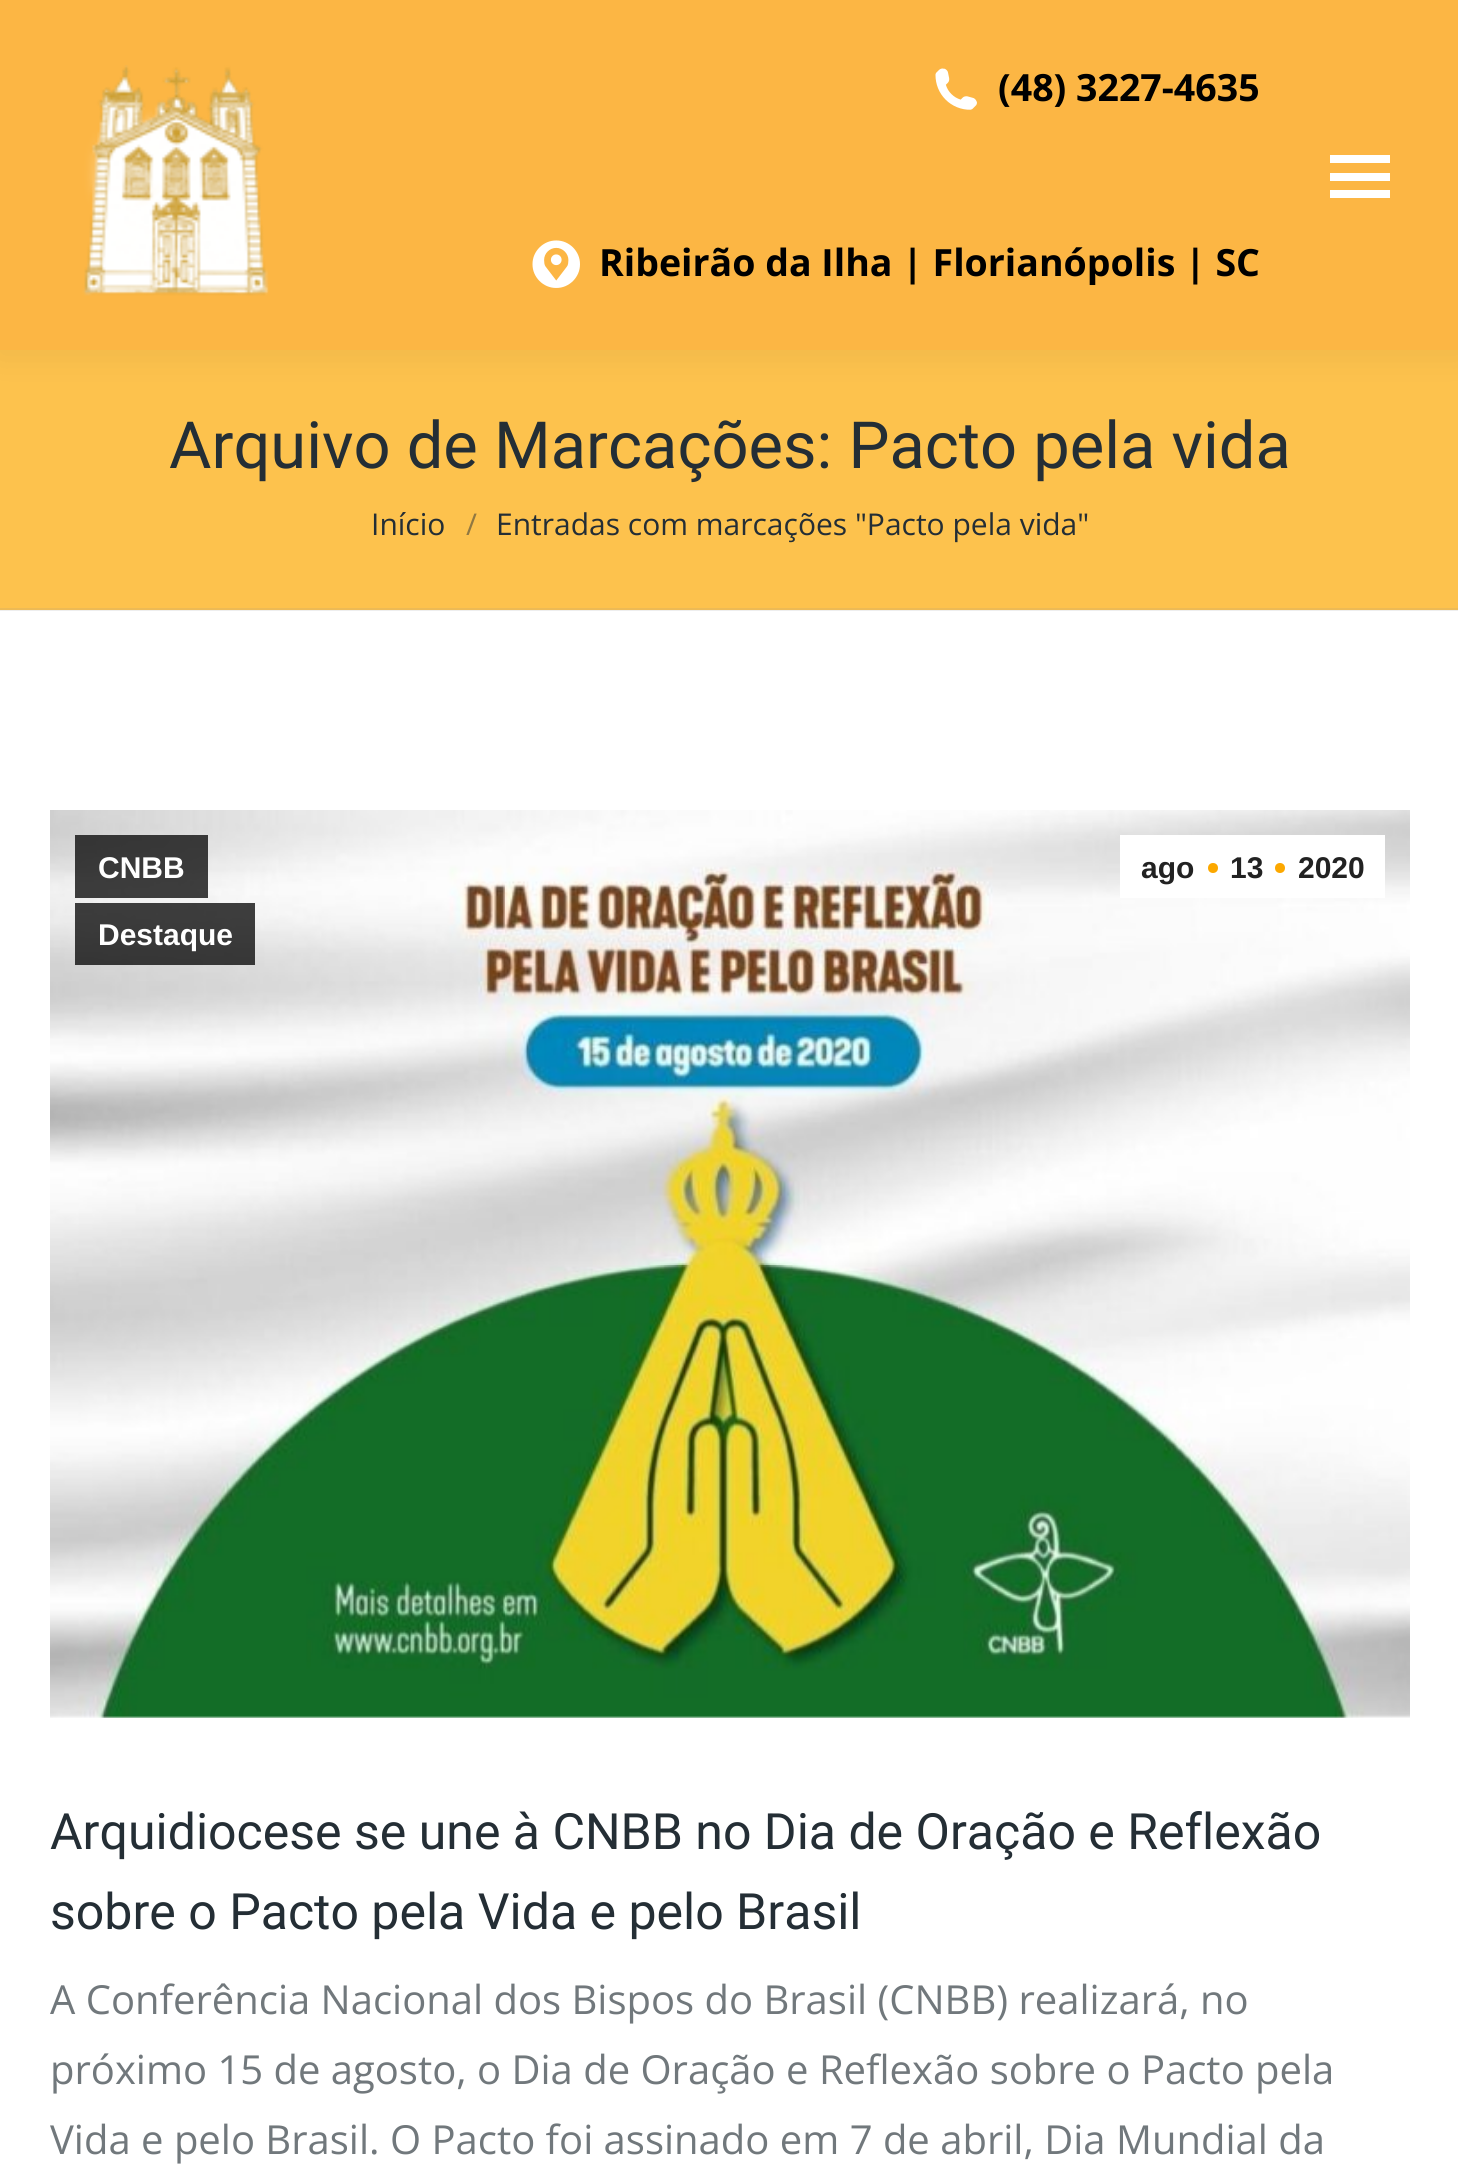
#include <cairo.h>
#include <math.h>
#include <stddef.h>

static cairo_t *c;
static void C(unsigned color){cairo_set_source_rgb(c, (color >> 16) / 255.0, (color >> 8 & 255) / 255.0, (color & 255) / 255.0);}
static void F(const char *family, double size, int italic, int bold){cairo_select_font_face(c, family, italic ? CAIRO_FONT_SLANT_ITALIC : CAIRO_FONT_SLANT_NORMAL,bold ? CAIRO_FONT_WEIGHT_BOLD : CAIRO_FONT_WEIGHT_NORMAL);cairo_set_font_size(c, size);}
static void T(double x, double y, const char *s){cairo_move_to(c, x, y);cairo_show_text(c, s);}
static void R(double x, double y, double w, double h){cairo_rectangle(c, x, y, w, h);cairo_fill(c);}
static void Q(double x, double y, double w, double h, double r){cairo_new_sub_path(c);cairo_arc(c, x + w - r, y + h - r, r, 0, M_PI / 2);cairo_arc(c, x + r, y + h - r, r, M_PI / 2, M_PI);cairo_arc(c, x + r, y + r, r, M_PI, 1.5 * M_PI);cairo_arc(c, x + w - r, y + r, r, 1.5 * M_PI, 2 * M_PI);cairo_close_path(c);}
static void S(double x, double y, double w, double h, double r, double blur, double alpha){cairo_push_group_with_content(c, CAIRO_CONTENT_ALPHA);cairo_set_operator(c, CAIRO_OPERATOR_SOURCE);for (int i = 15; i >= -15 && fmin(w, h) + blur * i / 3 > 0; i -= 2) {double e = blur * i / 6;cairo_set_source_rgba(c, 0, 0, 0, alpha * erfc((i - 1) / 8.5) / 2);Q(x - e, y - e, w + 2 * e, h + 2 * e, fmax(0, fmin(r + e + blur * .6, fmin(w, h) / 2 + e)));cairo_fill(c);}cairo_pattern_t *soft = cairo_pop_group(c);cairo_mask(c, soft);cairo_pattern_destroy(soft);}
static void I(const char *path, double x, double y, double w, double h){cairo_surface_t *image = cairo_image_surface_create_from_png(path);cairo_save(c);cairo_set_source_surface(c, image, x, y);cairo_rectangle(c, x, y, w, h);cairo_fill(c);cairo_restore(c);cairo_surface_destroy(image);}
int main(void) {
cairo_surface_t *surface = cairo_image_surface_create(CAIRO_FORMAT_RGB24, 1458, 2183);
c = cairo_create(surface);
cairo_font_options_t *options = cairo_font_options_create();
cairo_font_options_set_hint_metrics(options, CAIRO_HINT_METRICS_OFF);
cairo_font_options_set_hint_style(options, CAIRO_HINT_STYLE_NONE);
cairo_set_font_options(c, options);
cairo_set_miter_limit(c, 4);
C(0xffffff);
cairo_paint(c);
C(0xeeeeee);
R(0,610,1458,1);
C(0xfdc24d);
R(0,350,1458,258);
C(0x000000);
S(-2,-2,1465,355,0,19,.07);
C(0xfcb644);
R(0,0,1458,350);
I("1.png",82,65,187,231);
I("2.png",935,68,42,42);
F("Open Sans",37.5,0,1);
C(0x000000);
T(998,101,"(48) 3227-4635");
I("3.png",532,240,48,48);
T(599,276,"Ribeirão da Ilha | Florianópolis | SC");
C(0xffffff);
R(1330,155,60,8);
R(1330,173,60,8);
R(1330,190,60,8);
C(0xedba55);
R(0,608,1458,2);
F("Roboto",65,0,0);
C(0x242e35);
T(169,468,"Arquivo de Marcações: Pacto pela vida");
F("Open Sans",30,0,0);
T(371,535,"Início");
C(0x917841);
T(466,535,"/");
C(0x242e35);
T(496,535,"Entradas com marcações \"Pacto pela vida\"");
I("4.png",50,810,1360,908);
cairo_set_source_rgba(c,0,0,0,0.75);
R(75,835,133,63);
F("Liberation Sans",30,0,1);
C(0xffffff);
T(98,878,"CNBB");
cairo_set_source_rgba(c,0,0,0,0.75);
R(75,903,180,62);
C(0xffffff);
T(98,945,"Destaque");
R(1120,835,265,63);
C(0x222222);
T(1141,878,"ago");
C(0xfca800);
cairo_new_path(c);
cairo_arc(c,1213,868,5,0,2 * M_PI);
cairo_fill(c);
C(0x222222);
T(1230,878,"13");
C(0xfca800);
cairo_new_path(c);
cairo_arc(c,1280,868,5,0,2 * M_PI);
cairo_fill(c);
C(0x222222);
T(1298,878,"2020");
F("Roboto",50,0,0);
C(0x242e35);
T(50,1849,"Arquidiocese se une à CNBB no Dia de Oração e Reflexão");
T(50,1929,"sobre o Pacto pela Vida e pelo Brasil");
F("Open Sans",40,0,0);
C(0x71787c);
T(50,2014,"A Conferência Nacional dos Bispos do Brasil (CNBB) realizará, no");
T(50,2084,"próximo 15 de agosto, o Dia de Oração e Reflexão sobre o Pacto pela");
T(50,2154,"Vida e pelo Brasil. O Pacto foi assinado em 7 de abril, Dia Mundial da");
cairo_surface_write_to_png(surface, "o.png");
cairo_font_options_destroy(options);
cairo_destroy(c);
cairo_surface_destroy(surface);
return 0;
}
